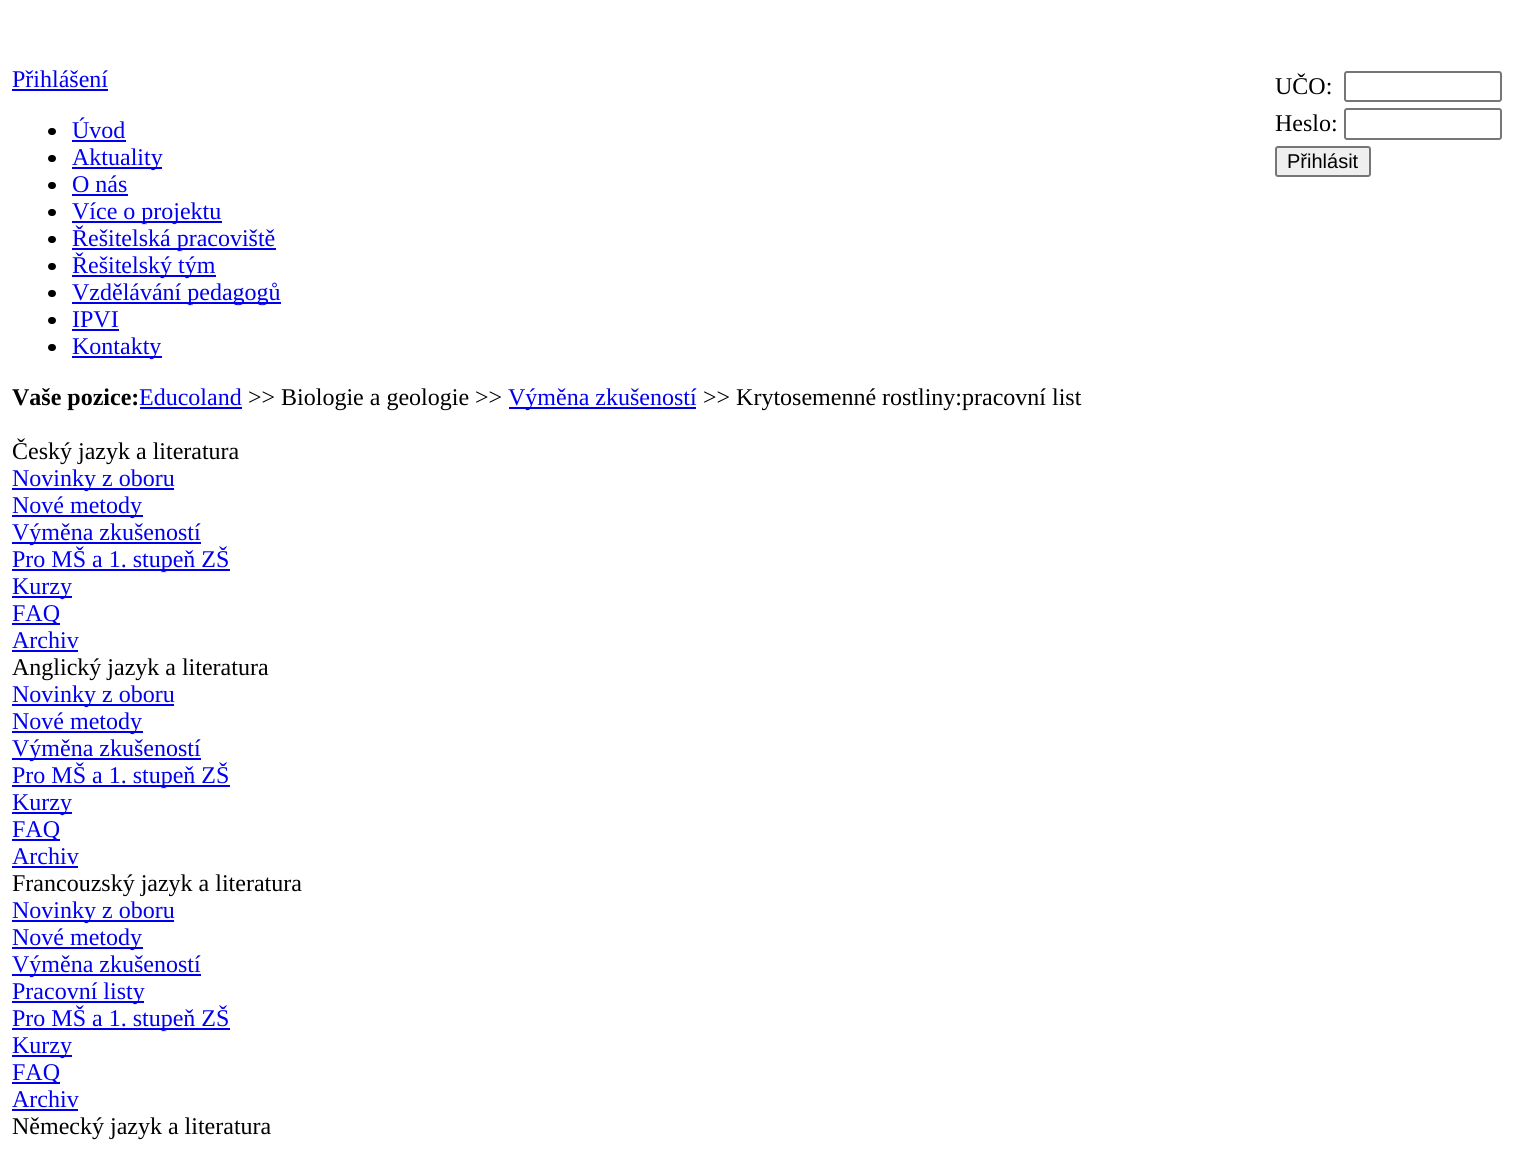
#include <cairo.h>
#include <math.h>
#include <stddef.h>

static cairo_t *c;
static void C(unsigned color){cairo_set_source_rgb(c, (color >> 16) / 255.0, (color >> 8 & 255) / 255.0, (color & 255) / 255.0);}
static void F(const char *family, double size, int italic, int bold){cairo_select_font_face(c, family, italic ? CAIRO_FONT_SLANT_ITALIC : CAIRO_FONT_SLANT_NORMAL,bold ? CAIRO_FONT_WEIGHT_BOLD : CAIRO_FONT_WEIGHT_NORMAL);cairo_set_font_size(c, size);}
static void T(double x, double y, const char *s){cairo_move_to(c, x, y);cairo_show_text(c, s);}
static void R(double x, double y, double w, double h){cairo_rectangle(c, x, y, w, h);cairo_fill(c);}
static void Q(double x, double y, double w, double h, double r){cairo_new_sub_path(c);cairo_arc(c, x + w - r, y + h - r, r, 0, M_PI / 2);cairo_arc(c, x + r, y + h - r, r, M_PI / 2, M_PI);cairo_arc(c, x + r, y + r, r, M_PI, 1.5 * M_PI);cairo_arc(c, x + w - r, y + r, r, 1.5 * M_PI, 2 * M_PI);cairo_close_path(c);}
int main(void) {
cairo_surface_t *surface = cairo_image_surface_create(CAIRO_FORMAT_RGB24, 1518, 1155);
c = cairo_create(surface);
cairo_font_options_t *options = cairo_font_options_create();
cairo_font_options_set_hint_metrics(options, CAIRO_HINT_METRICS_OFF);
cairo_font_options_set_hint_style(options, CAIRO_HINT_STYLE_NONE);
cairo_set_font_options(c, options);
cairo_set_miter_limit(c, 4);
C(0xffffff);
cairo_paint(c);
F("Liberation Serif",24,0,0);
C(0x0000ee);
T(12,87,"Přihlášení");
R(12,89,96,2);
C(0x000000);
T(1275,94,"UČO:");
Q(1345,72,156,29,2);
C(0x767676);
cairo_stroke(c);
C(0x000000);
T(1275,131,"Heslo:");
Q(1345,109,156,30,2);
C(0x767676);
cairo_stroke(c);
C(0xefefef);
Q(1276,147,94,29,2);
cairo_fill_preserve(c);
C(0x767676);
cairo_stroke(c);
F("Liberation Sans",20,0,0);
C(0x000000);
T(1287,168,"Přihlásit");
Q(48,128,8,7,3.5);
cairo_fill(c);
F("Liberation Serif",24,0,0);
C(0x0000ee);
T(72,138,"Úvod");
R(72,140,54,2);
C(0x000000);
Q(48,155,8,7,3.5);
cairo_fill(c);
C(0x0000ee);
R(72,167,90,2);
T(72,165,"Aktuality");
C(0x000000);
Q(48,182,8,7,3.5);
cairo_fill(c);
C(0x0000ee);
T(72,192,"O nás");
R(72,194,56,2);
C(0x000000);
Q(48,209,8,7,3.5);
cairo_fill(c);
C(0x0000ee);
R(72,221,150,2);
T(72,219,"Více o projektu");
C(0x000000);
Q(48,236,8,7,3.5);
cairo_fill(c);
C(0x0000ee);
R(72,248,204,2);
T(72,246,"Řešitelská pracoviště");
C(0x000000);
Q(48,263,8,7,3.5);
cairo_fill(c);
C(0x0000ee);
R(72,275,144,2);
T(72,273,"Řešitelský tým");
C(0x000000);
Q(48,290,8,7,3.5);
cairo_fill(c);
C(0x0000ee);
R(72,302,209,2);
T(72,300,"Vzdělávání pedagogů");
C(0x000000);
Q(48,317,8,7,3.5);
cairo_fill(c);
C(0x0000ee);
T(72,327,"IPVI");
R(72,329,47,2);
C(0x000000);
Q(48,344,8,7,3.5);
cairo_fill(c);
C(0x0000ee);
R(72,356,90,2);
T(72,354,"Kontakty");
F("Liberation Serif",24,0,1);
C(0x000000);
T(12,405,"Vaše pozice:");
F("Liberation Serif",24,0,0);
C(0x0000ee);
T(139,405,"Educoland");
R(140,407,102,2);
C(0x000000);
T(248,405,">> Biologie a geologie >>");
C(0x0000ee);
R(509,407,187,2);
T(508,405,"Výměna zkušeností");
C(0x000000);
T(703,405,">> Krytosemenné rostliny:pracovní list");
T(12,459,"Český jazyk a literatura");
C(0x0000ee);
R(12,488,162,2);
T(12,486,"Novinky z oboru");
R(12,515,131,2);
T(12,513,"Nové metody");
R(12,542,189,2);
T(12,540,"Výměna zkušeností");
R(12,569,218,2);
T(12,567,"Pro MŠ a 1. stupeň ZŠ");
R(12,596,60,2);
T(12,594,"Kurzy");
R(12,623,48,2);
T(12,621,"FAQ");
T(12,648,"Archiv");
R(12,650,66,2);
C(0x000000);
T(12,675,"Anglický jazyk a literatura");
C(0x0000ee);
R(12,704,162,2);
T(12,702,"Novinky z oboru");
R(12,731,131,2);
T(12,729,"Nové metody");
R(12,758,189,2);
T(12,756,"Výměna zkušeností");
R(12,785,218,2);
T(12,783,"Pro MŠ a 1. stupeň ZŠ");
R(12,812,60,2);
T(12,810,"Kurzy");
R(12,839,48,2);
T(12,837,"FAQ");
T(12,864,"Archiv");
R(12,866,66,2);
C(0x000000);
T(12,891,"Francouzský jazyk a literatura");
C(0x0000ee);
R(12,920,162,2);
T(12,918,"Novinky z oboru");
R(12,947,131,2);
T(12,945,"Nové metody");
R(12,974,189,2);
T(12,972,"Výměna zkušeností");
R(12,1001,132,2);
T(12,999,"Pracovní listy");
R(12,1028,218,2);
T(12,1026,"Pro MŠ a 1. stupeň ZŠ");
R(12,1055,60,2);
T(12,1053,"Kurzy");
R(12,1082,48,2);
T(12,1080,"FAQ");
T(12,1107,"Archiv");
R(12,1109,66,2);
C(0x000000);
T(12,1134,"Německý jazyk a literatura");
cairo_surface_write_to_png(surface, "o.png");
cairo_font_options_destroy(options);
cairo_destroy(c);
cairo_surface_destroy(surface);
return 0;
}
